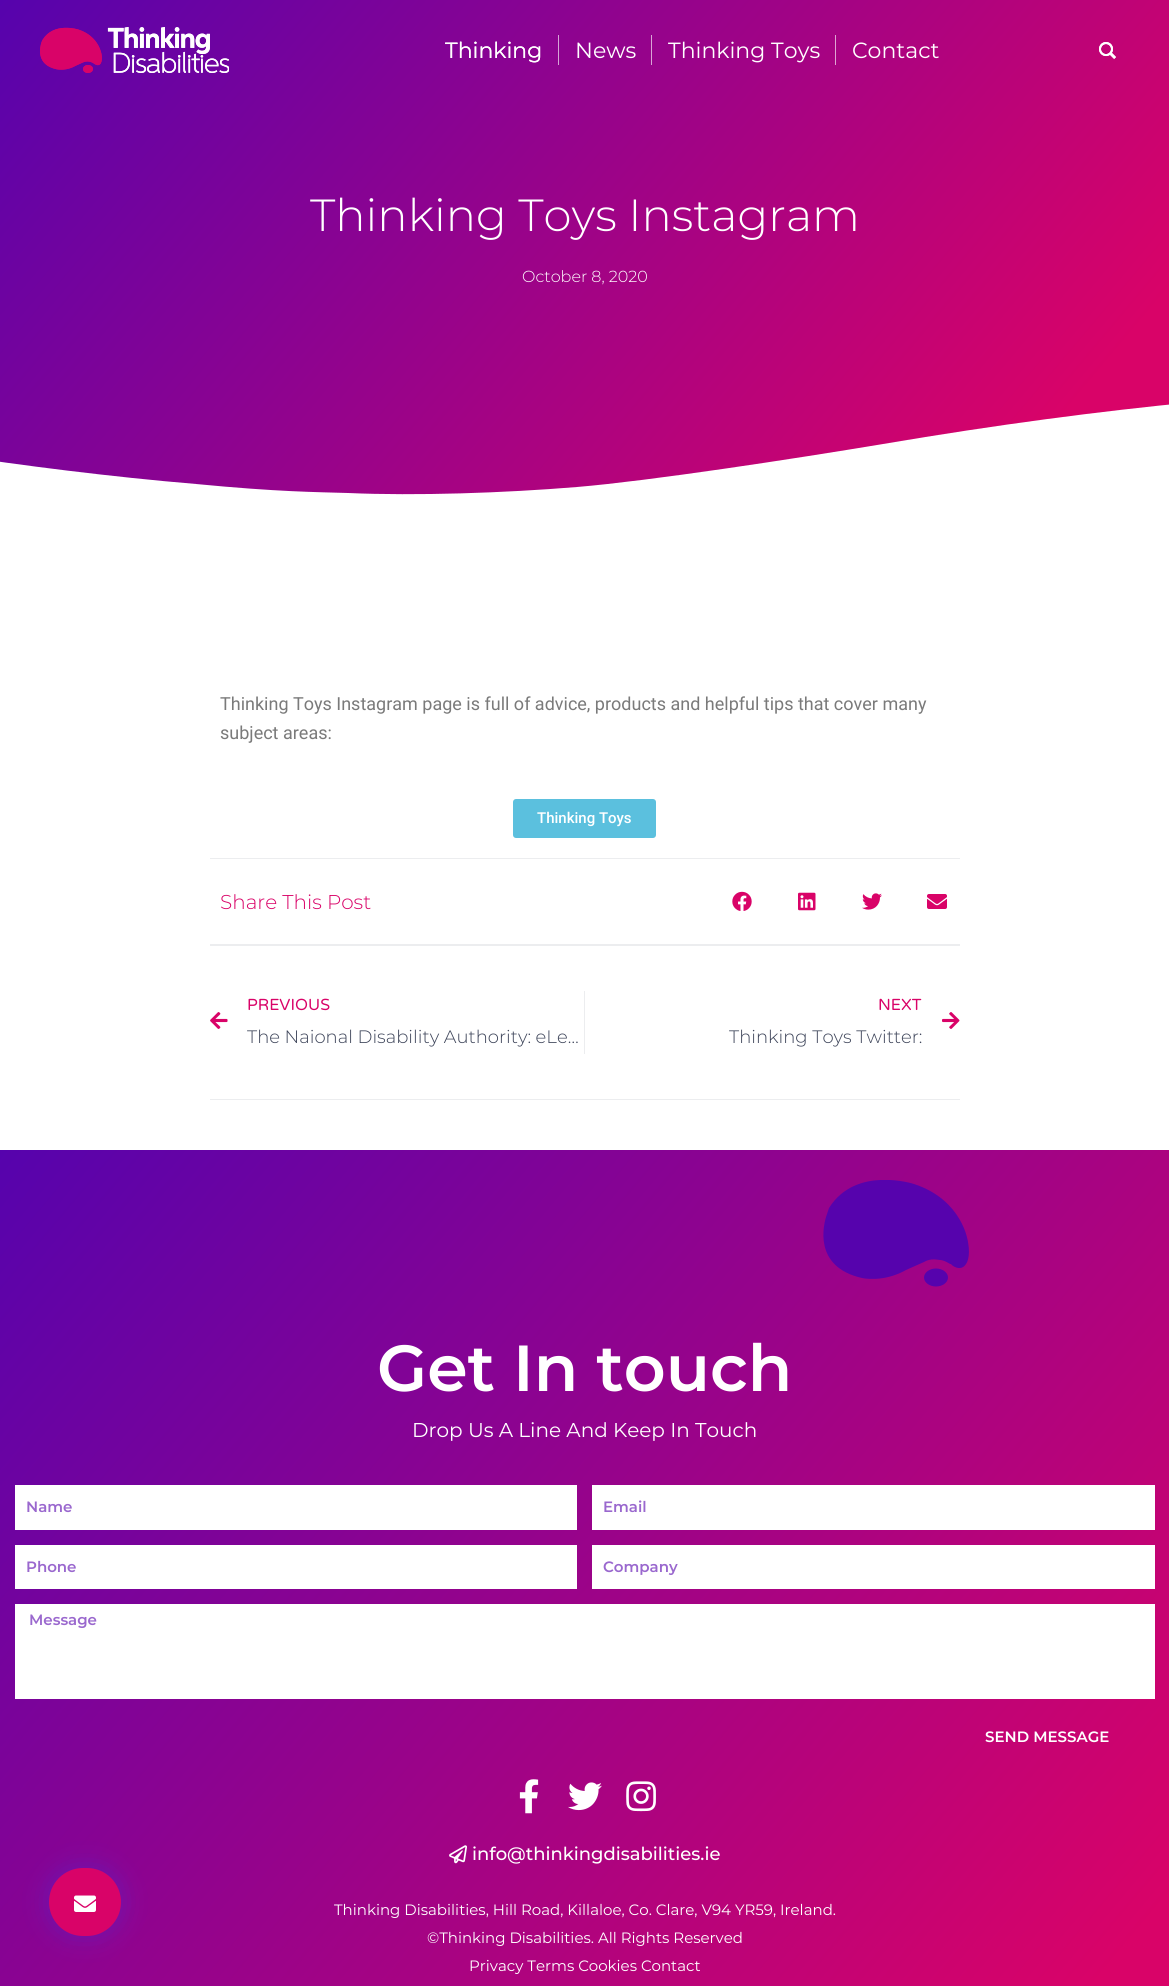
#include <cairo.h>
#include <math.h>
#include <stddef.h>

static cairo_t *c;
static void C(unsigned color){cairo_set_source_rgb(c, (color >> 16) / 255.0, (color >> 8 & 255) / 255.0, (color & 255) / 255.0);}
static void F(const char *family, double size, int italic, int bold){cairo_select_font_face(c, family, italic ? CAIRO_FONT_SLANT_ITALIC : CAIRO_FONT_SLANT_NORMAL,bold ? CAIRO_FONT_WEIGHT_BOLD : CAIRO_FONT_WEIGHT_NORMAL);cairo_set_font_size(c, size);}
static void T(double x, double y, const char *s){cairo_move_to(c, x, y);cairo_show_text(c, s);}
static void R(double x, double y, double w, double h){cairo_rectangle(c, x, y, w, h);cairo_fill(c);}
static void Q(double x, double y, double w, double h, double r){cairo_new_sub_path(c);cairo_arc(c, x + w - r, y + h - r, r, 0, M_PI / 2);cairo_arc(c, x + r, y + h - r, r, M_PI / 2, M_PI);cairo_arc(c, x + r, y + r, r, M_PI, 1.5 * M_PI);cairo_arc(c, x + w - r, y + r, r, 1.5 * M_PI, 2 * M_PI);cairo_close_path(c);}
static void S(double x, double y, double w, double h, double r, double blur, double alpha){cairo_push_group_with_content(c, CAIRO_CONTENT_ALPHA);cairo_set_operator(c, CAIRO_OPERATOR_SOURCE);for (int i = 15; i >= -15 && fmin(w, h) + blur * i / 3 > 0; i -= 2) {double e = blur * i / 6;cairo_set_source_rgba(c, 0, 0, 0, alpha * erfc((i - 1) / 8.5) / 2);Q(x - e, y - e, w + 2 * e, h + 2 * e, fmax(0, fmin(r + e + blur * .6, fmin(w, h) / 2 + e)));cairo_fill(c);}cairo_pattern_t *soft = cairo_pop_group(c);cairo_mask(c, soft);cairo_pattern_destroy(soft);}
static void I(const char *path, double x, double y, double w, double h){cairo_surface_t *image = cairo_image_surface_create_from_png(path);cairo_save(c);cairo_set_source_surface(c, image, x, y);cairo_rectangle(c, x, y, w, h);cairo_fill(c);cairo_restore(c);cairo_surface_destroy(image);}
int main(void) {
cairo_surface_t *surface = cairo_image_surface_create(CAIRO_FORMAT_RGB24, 1169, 1986);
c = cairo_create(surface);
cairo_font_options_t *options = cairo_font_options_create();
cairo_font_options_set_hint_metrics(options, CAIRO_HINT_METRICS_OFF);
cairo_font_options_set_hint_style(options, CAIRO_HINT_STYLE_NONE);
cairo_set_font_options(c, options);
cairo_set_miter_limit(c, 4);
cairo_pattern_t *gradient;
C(0xffffff);
cairo_paint(c);
gradient = cairo_pattern_create_linear(118,-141,1051,641);
cairo_pattern_add_color_stop_rgba(gradient,0,0.337,0.012,0.678,1);
cairo_pattern_add_color_stop_rgba(gradient,.89,0.851,0.012,0.408,1);
cairo_set_source(c,gradient);
cairo_pattern_destroy(gradient);
R(0,0,1169,495);
I("14.png",40,27,189,46);
I("1.png",40,27,189,46);
F("Montserrat",22,0,0);
C(0xffffff);
T(445,58,"Thinking");
T(445,58,"Thinking");
C(0xd6a4d7);
R(558,35,1,30);
C(0xd9a4d6);
R(651,35,1,30);
C(0xdfa4d2);
R(835,35,1,30);
I("15.png",1099,42,17,17);
I("2.png",1099,42,17,17);
F("Montserrat Light",45,0,0);
C(0xffffff);
T(310,231,"Thinking Toys Instagram");
F("Montserrat Light",16,0,0);
T(522,282,"October 8, 2020");
gradient = cairo_pattern_create_linear(-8,1160,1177,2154);
cairo_pattern_add_color_stop_rgba(gradient,0,0.337,0.012,0.678,1);
cairo_pattern_add_color_stop_rgba(gradient,.89,0.851,0.012,0.408,1);
cairo_set_source(c,gradient);
cairo_pattern_destroy(gradient);
R(0,1150,1169,836);
C(0x3538f0);
S(49,1868,72,68,34,12.5,.35);
C(0xd90368);
Q(49,1868,72,68,34);
cairo_fill(c);
I("3.png",74,1895,22,17);
C(0xffffff);
cairo_new_path(c);
cairo_move_to(c,348,493);
cairo_curve_to(c,416,496,504,493,577,487);
cairo_curve_to(c,649,481,793,459,883,444);
cairo_curve_to(c,1113,405,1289,391,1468,384);
cairo_curve_to(c,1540,382,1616,380,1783,387);
cairo_curve_to(c,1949,395,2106,418,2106,418);
cairo_line_to(c,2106,501);
cairo_line_to(c,-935,501);
cairo_line_to(c,-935,465);
cairo_curve_to(c,-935,465,-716,426,-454,428);
cairo_curve_to(c,-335,429,-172,436,-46,455);
cairo_curve_to(c,18,465,112,477,196,484);
cairo_curve_to(c,279,492,316,492,348,493);
cairo_close_path(c);
cairo_fill(c);
F("Roboto",18,0,0);
C(0x7a7a7a);
T(220,710,"Thinking Toys Instagram page is full of advice, products and helpful tips that cover many");
T(220,739,"subject areas:");
C(0x5bc0de);
Q(513,799,143,39,3);
cairo_fill(c);
F("Roboto Medium",15,0,0);
C(0xffffff);
T(537,823,"Thinking Toys");
C(0xecedef);
R(210,858,750,1);
R(210,944,750,2);
F("Montserrat Light",20,0,0);
C(0xd90368);
T(220,909,"Share This Post");
I("4.png",732,891,20,20);
I("5.png",798,892,18,19);
I("6.png",862,893,20,17);
I("7.png",927,894,20,15);
C(0xecedef);
R(210,1099,750,1);
I("8.png",210,1012,18,17);
F("Varela Round",16,0,0);
C(0xd90368);
T(247,1010,"PREVIOUS");
F("Montserrat Light",18,0,0);
C(0x3d4459);
T(247,1043,"The Naional Disability Authority: eLe…");
C(0xecedef);
R(584,991,1,63);
F("Varela Round",16,0,0);
C(0xd90368);
T(878,1010,"NEXT");
F("Montserrat Light",18,0,0);
C(0x3d4459);
T(729,1043,"Thinking Toys Twitter:");
I("9.png",942,1012,18,17);
cairo_save(c);
cairo_rectangle(c,823,1180,147,107);
cairo_clip(c);
C(0x5603ad);
cairo_new_path(c);
cairo_move_to(c,968,1242);
cairo_curve_to(c,968,1242,963,1200,914,1184);
cairo_curve_to(c,914,1184,856,1165,829,1208);
cairo_line_to(c,827,1214);
cairo_curve_to(c,823,1225,813,1267,862,1278);
cairo_curve_to(c,862,1278,883,1283,906,1270);
cairo_line_to(c,924,1262);
cairo_curve_to(c,929,1259,934,1259,940,1260);
cairo_curve_to(c,943,1260,947,1262,950,1264);
cairo_line_to(c,951,1264);
cairo_curve_to(c,952,1266,961,1272,966,1264);
cairo_curve_to(c,966,1264,971,1258,968,1242);
cairo_close_path(c);
cairo_fill(c);
cairo_restore(c);
C(0x5603ad);
cairo_new_path(c);
cairo_move_to(c,936,1268.5);
cairo_curve_to(c,942.5,1268.5,948,1272.5,948,1277.5);
cairo_curve_to(c,948,1282.5,942.5,1286.5,936,1286.5);
cairo_curve_to(c,929.5,1286.5,924,1282.5,924,1277.5);
cairo_curve_to(c,924,1272.5,929.5,1268.5,936,1268.5);
cairo_close_path(c);
cairo_fill(c);
F("Montserrat SemiBold",65,0,0);
C(0xffffff);
T(377,1391,"Get In touch");
F("Montserrat",20,0,0);
T(412,1437,"Drop Us A Line And Keep In Touch");
R(15,1485,562,45);
F("Montserrat SemiBold",15,0,0);
C(0x9a68ce);
T(26,1512,"Name");
C(0xffffff);
R(592,1485,563,45);
C(0x9a68ce);
T(603,1512,"Email");
C(0xffffff);
R(15,1545,562,44);
C(0x9a68ce);
T(26,1572,"Phone");
C(0xffffff);
R(592,1545,563,44);
C(0x9a68ce);
T(603,1572,"Company");
C(0xffffff);
R(15,1604,1140,95);
C(0x9a68ce);
T(29,1625,"Message");
C(0xffffff);
T(985,1742,"SEND MESSAGE");
I("10.png",519,1779,20,35);
I("11.png",568,1782,34,29);
I("12.png",626,1781,30,31);
I("13.png",449,1845,18,19);
F("Montserrat Medium",18,0,0);
T(472,1860,"info@thinkingdisabilities.ie");
F("Montserrat",15,0,0);
T(334,1915,"Thinking Disabilities, Hill Road, Killaloe, Co. Clare, V94 YR59, Ireland.");
T(427,1943,"©Thinking Disabilities. All Rights Reserved");
T(469,1971,"Privacy Terms Cookies Contact");
F("Montserrat",22,0,0);
T(575,58,"News");
T(668,58,"Thinking Toys");
T(852,58,"Contact");
cairo_surface_write_to_png(surface, "o.png");
cairo_font_options_destroy(options);
cairo_destroy(c);
cairo_surface_destroy(surface);
return 0;
}
